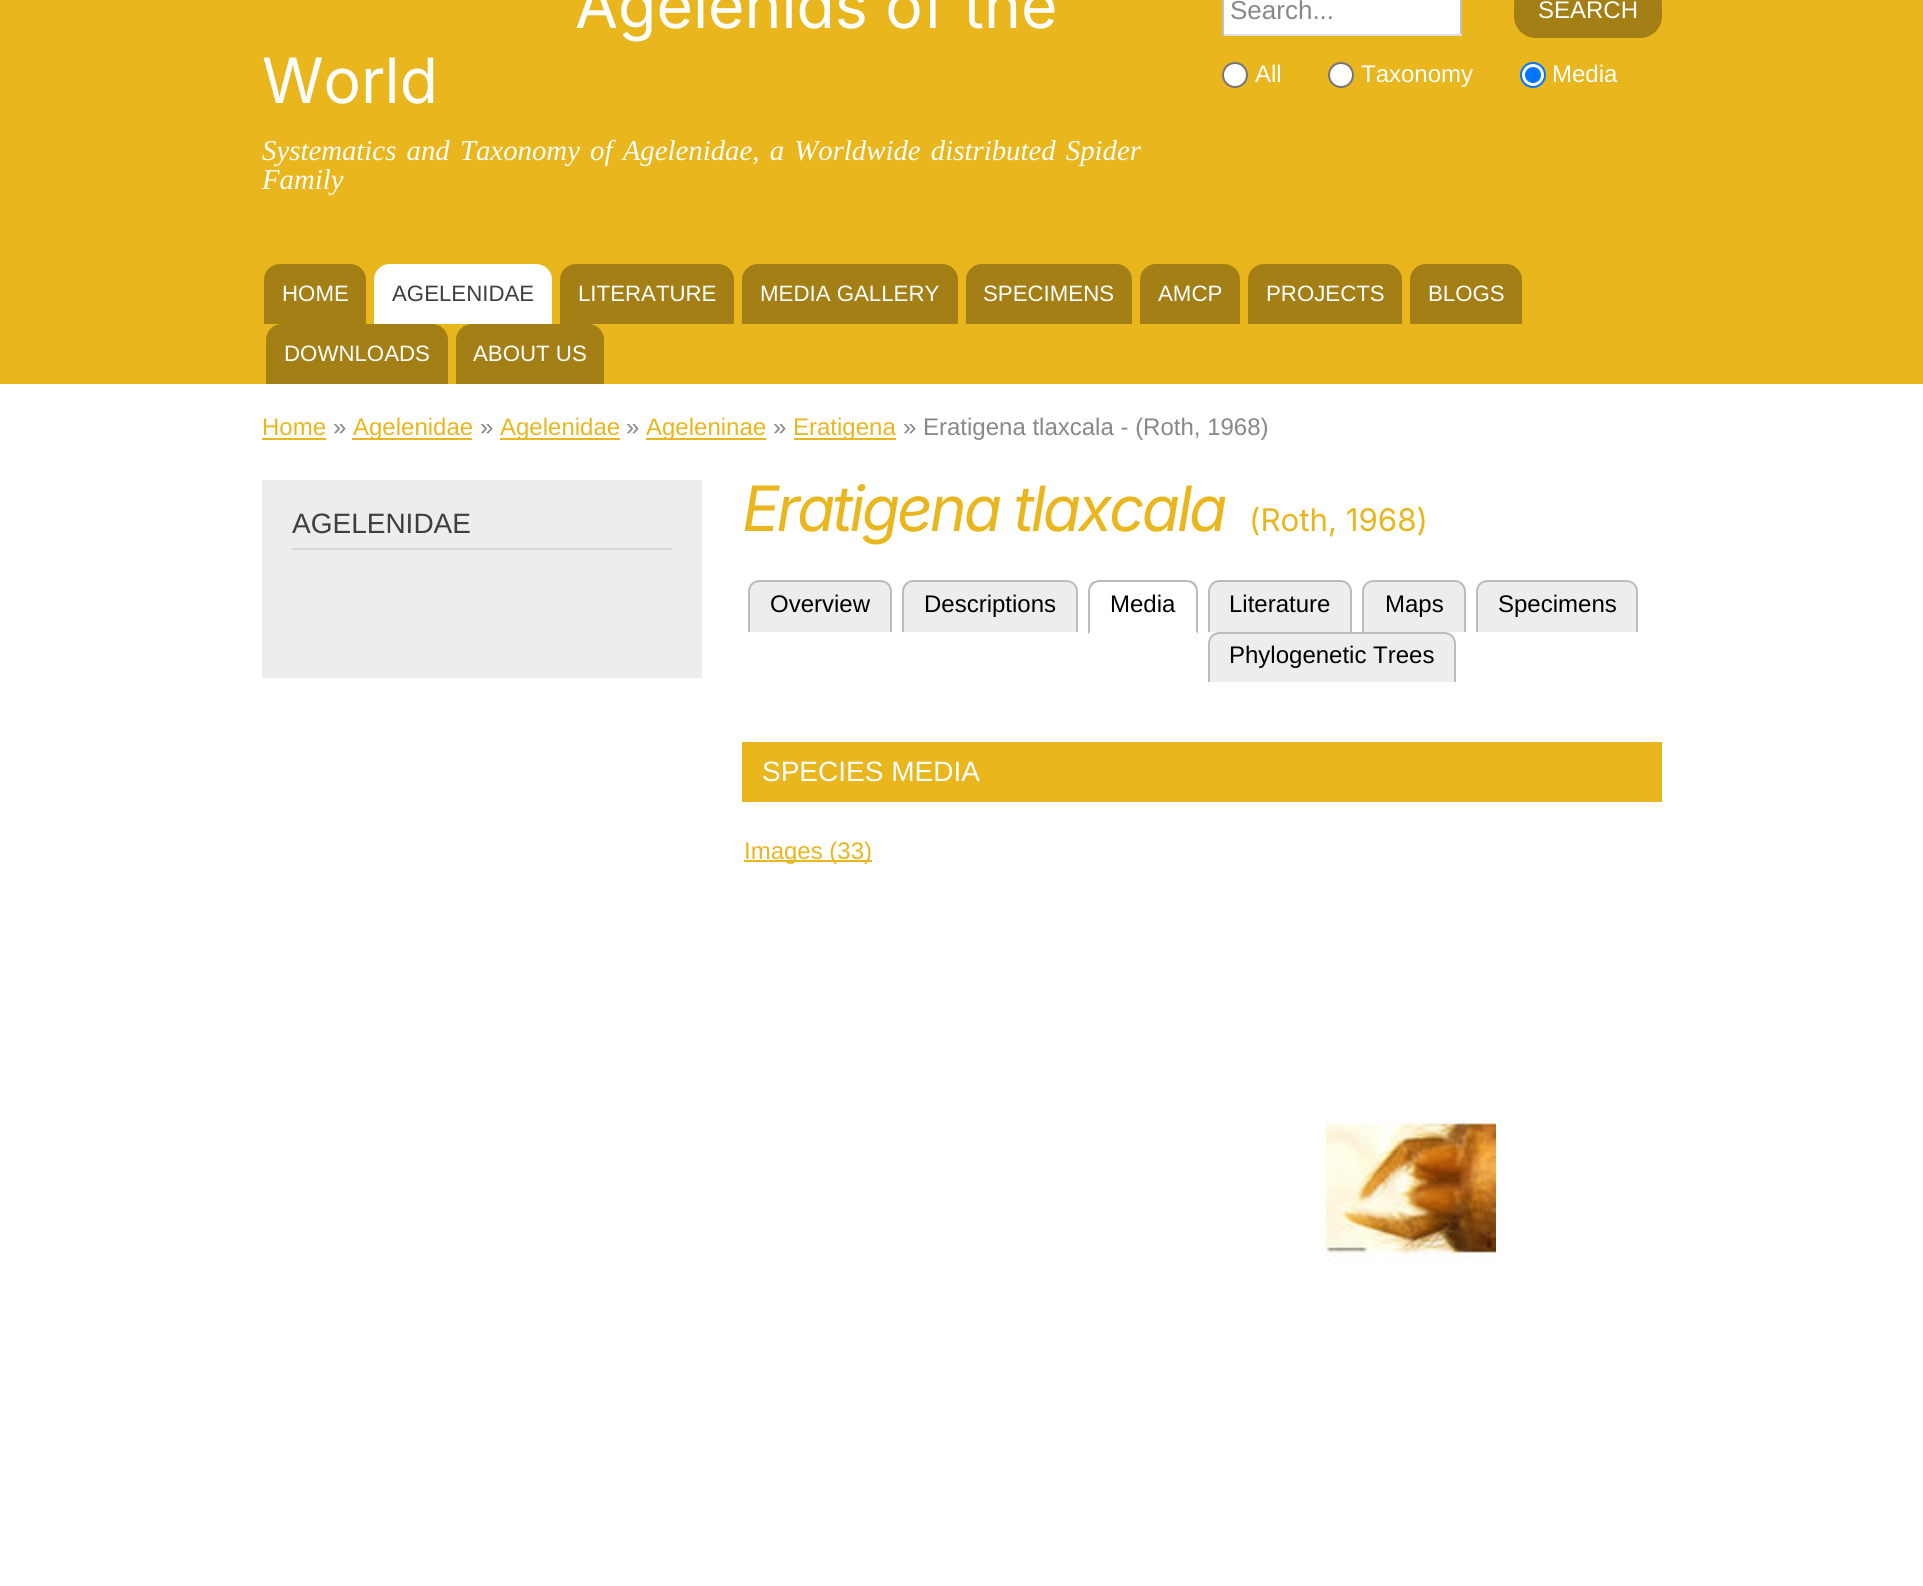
#include <cairo.h>
#include <math.h>
#include <stddef.h>

static cairo_t *c;
static void C(unsigned color){cairo_set_source_rgb(c, (color >> 16) / 255.0, (color >> 8 & 255) / 255.0, (color & 255) / 255.0);}
static void F(const char *family, double size, int italic, int bold){cairo_select_font_face(c, family, italic ? CAIRO_FONT_SLANT_ITALIC : CAIRO_FONT_SLANT_NORMAL,bold ? CAIRO_FONT_WEIGHT_BOLD : CAIRO_FONT_WEIGHT_NORMAL);cairo_set_font_size(c, size);}
static void T(double x, double y, const char *s){cairo_move_to(c, x, y);cairo_show_text(c, s);}
static void L(double x, double y, const char *s, double letter, double word){cairo_move_to(c, x, y);while (*s) {char ch[5] = {0};int n = 0;do ch[n++] = *s++; while ((*s & 0xC0) == 0x80);cairo_show_text(c, ch);cairo_rel_move_to(c, letter + word * (*ch == ' '), 0);}}
static void R(double x, double y, double w, double h){cairo_rectangle(c, x, y, w, h);cairo_fill(c);}
static void Q(double x, double y, double w, double h, double r){cairo_new_sub_path(c);cairo_arc(c, x + w - r, y + h - r, r, 0, M_PI / 2);cairo_arc(c, x + r, y + h - r, r, M_PI / 2, M_PI);cairo_arc(c, x + r, y + r, r, M_PI, 1.5 * M_PI);cairo_arc(c, x + w - r, y + r, r, 1.5 * M_PI, 2 * M_PI);cairo_close_path(c);}
static void I(const char *path, double x, double y, double w, double h){cairo_surface_t *image = cairo_image_surface_create_from_png(path);cairo_save(c);cairo_set_source_surface(c, image, x, y);cairo_rectangle(c, x, y, w, h);cairo_fill(c);cairo_restore(c);cairo_surface_destroy(image);}
int main(void) {
cairo_surface_t *surface = cairo_image_surface_create(CAIRO_FORMAT_RGB24, 1923, 1586);
c = cairo_create(surface);
cairo_font_options_t *options = cairo_font_options_create();
cairo_font_options_set_hint_metrics(options, CAIRO_HINT_METRICS_OFF);
cairo_font_options_set_hint_style(options, CAIRO_HINT_STYLE_NONE);
cairo_set_font_options(c, options);
cairo_set_miter_limit(c, 4);
C(0xffffff);
cairo_paint(c);
C(0xe9b61e);
R(0,0,1923,384);
F("Inter",62.5,0,0);
C(0xffffff);
T(575,28,"Agelenids of the");
T(262,103,"World");
F("Liberation Serif",28.8,1,0);
L(262,160,"Systematics and Taxonomy of Agelenidae, a Worldwide distributed Spider",0,3);
T(262,189,"Family");
R(1224,0,236,34);
C(0xc1c1c1);
R(1460,0,2,36);
C(0xe1e1e1);
R(1222,34,240,2);
C(0xc1c1c1);
R(1222,0,2,36);
F("Liberation Sans",26,0,0);
C(0x888888);
T(1230,19,"Search...");
C(0xa37f15);
Q(1514,-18,148,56,22);
cairo_fill(c);
F("Liberation Sans",24,0,0);
C(0xffffff);
T(1538,18,"SEARCH");
cairo_new_path(c);
cairo_arc(c,1235,75,12,0,2 * M_PI);
cairo_fill_preserve(c);
C(0x767676);
cairo_stroke(c);
C(0xffffff);
T(1255,82,"All");
cairo_new_path(c);
cairo_arc(c,1341,75,12,0,2 * M_PI);
cairo_fill_preserve(c);
C(0x767676);
cairo_stroke(c);
C(0xffffff);
T(1361,82,"Taxonomy");
cairo_new_path(c);
cairo_arc(c,1533,75,12,0,2 * M_PI);
cairo_fill_preserve(c);
C(0x0075ff);
cairo_stroke(c);
cairo_arc(c,1533,75,8,0,2 * M_PI);
cairo_fill(c);
C(0xffffff);
T(1552,82,"Media");
C(0xa37f15);
cairo_new_path(c);
cairo_move_to(c,280,264);
cairo_line_to(c,350,264);
cairo_curve_to(c,359,264,366,271,366,280);
cairo_line_to(c,366,324);
cairo_line_to(c,264,324);
cairo_line_to(c,264,280);
cairo_curve_to(c,264,271,271,264,280,264);
cairo_close_path(c);
cairo_fill(c);
F("Liberation Sans",22.25,0,0);
C(0xffffff);
T(282,301,"HOME");
cairo_new_path(c);
cairo_move_to(c,390,264);
cairo_line_to(c,536,264);
cairo_curve_to(c,545,264,552,271,552,280);
cairo_line_to(c,552,324);
cairo_line_to(c,374,324);
cairo_line_to(c,374,280);
cairo_curve_to(c,374,271,381,264,390,264);
cairo_close_path(c);
cairo_fill(c);
C(0x3e3e3e);
T(392,301,"AGELENIDAE");
C(0xa37f15);
cairo_new_path(c);
cairo_move_to(c,576,264);
cairo_line_to(c,718,264);
cairo_curve_to(c,727,264,734,271,734,280);
cairo_line_to(c,734,324);
cairo_line_to(c,560,324);
cairo_line_to(c,560,280);
cairo_curve_to(c,560,271,567,264,576,264);
cairo_close_path(c);
cairo_fill(c);
C(0xffffff);
T(578,301,"LITERATURE");
C(0xa37f15);
cairo_new_path(c);
cairo_move_to(c,758,264);
cairo_line_to(c,942,264);
cairo_curve_to(c,951,264,958,271,958,280);
cairo_line_to(c,958,324);
cairo_line_to(c,742,324);
cairo_line_to(c,742,280);
cairo_curve_to(c,742,271,749,264,758,264);
cairo_close_path(c);
cairo_fill(c);
C(0xffffff);
T(760,301,"MEDIA GALLERY");
C(0xa37f15);
cairo_new_path(c);
cairo_move_to(c,982,264);
cairo_line_to(c,1116,264);
cairo_curve_to(c,1125,264,1132,271,1132,280);
cairo_line_to(c,1132,324);
cairo_line_to(c,966,324);
cairo_line_to(c,966,280);
cairo_curve_to(c,966,271,973,264,982,264);
cairo_close_path(c);
cairo_fill(c);
C(0xffffff);
T(983,301,"SPECIMENS");
C(0xa37f15);
cairo_new_path(c);
cairo_move_to(c,1156,264);
cairo_line_to(c,1224,264);
cairo_curve_to(c,1233,264,1240,271,1240,280);
cairo_line_to(c,1240,324);
cairo_line_to(c,1140,324);
cairo_line_to(c,1140,280);
cairo_curve_to(c,1140,271,1147,264,1156,264);
cairo_close_path(c);
cairo_fill(c);
C(0xffffff);
T(1158,301,"AMCP");
C(0xa37f15);
cairo_new_path(c);
cairo_move_to(c,1264,264);
cairo_line_to(c,1386,264);
cairo_curve_to(c,1395,264,1402,271,1402,280);
cairo_line_to(c,1402,324);
cairo_line_to(c,1248,324);
cairo_line_to(c,1248,280);
cairo_curve_to(c,1248,271,1255,264,1264,264);
cairo_close_path(c);
cairo_fill(c);
C(0xffffff);
T(1266,301,"PROJECTS");
C(0xa37f15);
cairo_new_path(c);
cairo_move_to(c,1426,264);
cairo_line_to(c,1506,264);
cairo_curve_to(c,1515,264,1522,271,1522,280);
cairo_line_to(c,1522,324);
cairo_line_to(c,1410,324);
cairo_line_to(c,1410,280);
cairo_curve_to(c,1410,271,1417,264,1426,264);
cairo_close_path(c);
cairo_fill(c);
C(0xffffff);
T(1428,301,"BLOGS");
C(0xa37f15);
cairo_new_path(c);
cairo_move_to(c,282,324);
cairo_line_to(c,432,324);
cairo_curve_to(c,441,324,448,331,448,340);
cairo_line_to(c,448,384);
cairo_line_to(c,266,384);
cairo_line_to(c,266,340);
cairo_curve_to(c,266,331,273,324,282,324);
cairo_close_path(c);
cairo_fill(c);
C(0xffffff);
T(284,361,"DOWNLOADS");
C(0xa37f15);
cairo_new_path(c);
cairo_move_to(c,472,324);
cairo_line_to(c,588,324);
cairo_curve_to(c,597,324,604,331,604,340);
cairo_line_to(c,604,384);
cairo_line_to(c,456,384);
cairo_line_to(c,456,340);
cairo_curve_to(c,456,331,463,324,472,324);
cairo_close_path(c);
cairo_fill(c);
C(0xffffff);
T(473,361,"ABOUT US");
F("Liberation Sans",24,0,0);
C(0xe9b61e);
T(262,435,"Home");
R(262,438,64,2);
C(0x888888);
T(333,435,"»");
C(0xe9b61e);
R(352,438,120,2);
T(353,435,"Agelenidae");
C(0x888888);
T(480,435,"»");
C(0xe9b61e);
R(500,438,120,2);
T(500,435,"Agelenidae");
C(0x888888);
T(626,435,"»");
C(0xe9b61e);
R(646,438,120,2);
T(646,435,"Ageleninae");
C(0x888888);
T(773,435,"»");
C(0xe9b61e);
R(794,438,102,2);
T(793,435,"Eratigena");
C(0x888888);
T(903,435,"» Eratigena tlaxcala - (Roth, 1968)");
C(0xededed);
R(262,480,440,198);
C(0xd6d6d6);
R(292,548,380,2);
F("Liberation Sans",28,0,0);
C(0x3e3e3e);
T(292,533,"AGELENIDAE");
F("Inter",62.5,1,0);
C(0xe9b61e);
L(742,531,"Eratigena tlaxcala",-3.1,0);
F("Inter",31.25,0,0);
T(1249,531,"(Roth, 1968)");
C(0xededed);
cairo_new_path(c);
cairo_move_to(c,760,580);
cairo_line_to(c,880,580);
cairo_curve_to(c,886.5,580,892,585.5,892,592);
cairo_line_to(c,892,632);
cairo_line_to(c,748,632);
cairo_line_to(c,748,592);
cairo_curve_to(c,748,585.5,753.5,580,760,580);
cairo_close_path(c);
cairo_fill(c);
C(0xbbbbbb);
cairo_set_fill_rule(c,CAIRO_FILL_RULE_EVEN_ODD);
cairo_new_path(c);
cairo_move_to(c,760,580);
cairo_line_to(c,880,580);
cairo_curve_to(c,887,580,892,585,892,592);
cairo_line_to(c,892,632);
cairo_line_to(c,748,632);
cairo_line_to(c,748,592);
cairo_curve_to(c,748,585,753,580,760,580);
cairo_close_path(c);
cairo_move_to(c,760,582);
cairo_line_to(c,880,582);
cairo_curve_to(c,886,582,890,586,890,592);
cairo_line_to(c,890,632);
cairo_line_to(c,750,632);
cairo_line_to(c,750,592);
cairo_curve_to(c,750,586,754,582,760,582);
cairo_close_path(c);
cairo_fill(c);
F("Liberation Sans",24,0,0);
C(0x000000);
T(770,612,"Overview");
C(0xededed);
cairo_new_path(c);
cairo_move_to(c,914,580);
cairo_line_to(c,1066,580);
cairo_curve_to(c,1072.5,580,1078,585.5,1078,592);
cairo_line_to(c,1078,632);
cairo_line_to(c,902,632);
cairo_line_to(c,902,592);
cairo_curve_to(c,902,585.5,907.5,580,914,580);
cairo_close_path(c);
cairo_fill(c);
C(0xbbbbbb);
cairo_new_path(c);
cairo_move_to(c,914,580);
cairo_line_to(c,1066,580);
cairo_curve_to(c,1073,580,1078,585,1078,592);
cairo_line_to(c,1078,632);
cairo_line_to(c,902,632);
cairo_line_to(c,902,592);
cairo_curve_to(c,902,585,907,580,914,580);
cairo_close_path(c);
cairo_move_to(c,914,582);
cairo_line_to(c,1066,582);
cairo_curve_to(c,1072,582,1076,586,1076,592);
cairo_line_to(c,1076,632);
cairo_line_to(c,904,632);
cairo_line_to(c,904,592);
cairo_curve_to(c,904,586,908,582,914,582);
cairo_close_path(c);
cairo_fill(c);
C(0x000000);
T(924,612,"Descriptions");
C(0xbbbbbb);
cairo_set_fill_rule(c,CAIRO_FILL_RULE_WINDING);
cairo_new_path(c);
cairo_move_to(c,1100,580);
cairo_curve_to(c,1096,580,1094,581,1091,583);
cairo_line_to(c,1093,585);
cairo_curve_to(c,1094,583,1097,582,1100,582);
cairo_line_to(c,1186,582);
cairo_curve_to(c,1189,582,1192,583,1193,585);
cairo_line_to(c,1195,583);
cairo_curve_to(c,1192,581,1190,580,1186,580);
cairo_close_path(c);
cairo_fill(c);
cairo_new_path(c);
cairo_move_to(c,1198,634);
cairo_line_to(c,1198,592);
cairo_curve_to(c,1198,588,1197,586,1195,583);
cairo_line_to(c,1193,585);
cairo_curve_to(c,1195,586,1196,589,1196,592);
cairo_line_to(c,1196,632);
cairo_close_path(c);
cairo_fill(c);
C(0xffffff);
cairo_new_path(c);
cairo_move_to(c,1198,634);
cairo_line_to(c,1196,632);
cairo_line_to(c,1090,632);
cairo_line_to(c,1088,634);
cairo_close_path(c);
cairo_fill(c);
C(0xbbbbbb);
cairo_new_path(c);
cairo_move_to(c,1088,634);
cairo_line_to(c,1090,632);
cairo_line_to(c,1090,592);
cairo_curve_to(c,1090,589,1091,586,1093,585);
cairo_line_to(c,1091,583);
cairo_curve_to(c,1089,586,1088,588,1088,592);
cairo_close_path(c);
cairo_fill(c);
C(0x000000);
T(1110,612,"Media");
C(0xededed);
cairo_new_path(c);
cairo_move_to(c,1220,580);
cairo_line_to(c,1340,580);
cairo_curve_to(c,1346.5,580,1352,585.5,1352,592);
cairo_line_to(c,1352,632);
cairo_line_to(c,1208,632);
cairo_line_to(c,1208,592);
cairo_curve_to(c,1208,585.5,1213.5,580,1220,580);
cairo_close_path(c);
cairo_fill(c);
C(0xbbbbbb);
cairo_set_fill_rule(c,CAIRO_FILL_RULE_EVEN_ODD);
cairo_new_path(c);
cairo_move_to(c,1220,580);
cairo_line_to(c,1340,580);
cairo_curve_to(c,1347,580,1352,585,1352,592);
cairo_line_to(c,1352,632);
cairo_line_to(c,1208,632);
cairo_line_to(c,1208,592);
cairo_curve_to(c,1208,585,1213,580,1220,580);
cairo_close_path(c);
cairo_move_to(c,1220,582);
cairo_line_to(c,1340,582);
cairo_curve_to(c,1346,582,1350,586,1350,592);
cairo_line_to(c,1350,632);
cairo_line_to(c,1210,632);
cairo_line_to(c,1210,592);
cairo_curve_to(c,1210,586,1214,582,1220,582);
cairo_close_path(c);
cairo_fill(c);
C(0x000000);
T(1229,612,"Literature");
C(0xededed);
cairo_new_path(c);
cairo_move_to(c,1374,580);
cairo_line_to(c,1454,580);
cairo_curve_to(c,1460.5,580,1466,585.5,1466,592);
cairo_line_to(c,1466,632);
cairo_line_to(c,1362,632);
cairo_line_to(c,1362,592);
cairo_curve_to(c,1362,585.5,1367.5,580,1374,580);
cairo_close_path(c);
cairo_fill(c);
C(0xbbbbbb);
cairo_new_path(c);
cairo_move_to(c,1374,580);
cairo_line_to(c,1454,580);
cairo_curve_to(c,1461,580,1466,585,1466,592);
cairo_line_to(c,1466,632);
cairo_line_to(c,1362,632);
cairo_line_to(c,1362,592);
cairo_curve_to(c,1362,585,1367,580,1374,580);
cairo_close_path(c);
cairo_move_to(c,1374,582);
cairo_line_to(c,1454,582);
cairo_curve_to(c,1460,582,1464,586,1464,592);
cairo_line_to(c,1464,632);
cairo_line_to(c,1364,632);
cairo_line_to(c,1364,592);
cairo_curve_to(c,1364,586,1368,582,1374,582);
cairo_close_path(c);
cairo_fill(c);
C(0x000000);
T(1385,612,"Maps");
C(0xededed);
cairo_new_path(c);
cairo_move_to(c,1488,580);
cairo_line_to(c,1626,580);
cairo_curve_to(c,1632.5,580,1638,585.5,1638,592);
cairo_line_to(c,1638,632);
cairo_line_to(c,1476,632);
cairo_line_to(c,1476,592);
cairo_curve_to(c,1476,585.5,1481.5,580,1488,580);
cairo_close_path(c);
cairo_fill(c);
C(0xbbbbbb);
cairo_new_path(c);
cairo_move_to(c,1488,580);
cairo_line_to(c,1626,580);
cairo_curve_to(c,1633,580,1638,585,1638,592);
cairo_line_to(c,1638,632);
cairo_line_to(c,1476,632);
cairo_line_to(c,1476,592);
cairo_curve_to(c,1476,585,1481,580,1488,580);
cairo_close_path(c);
cairo_move_to(c,1488,582);
cairo_line_to(c,1626,582);
cairo_curve_to(c,1632,582,1636,586,1636,592);
cairo_line_to(c,1636,632);
cairo_line_to(c,1478,632);
cairo_line_to(c,1478,592);
cairo_curve_to(c,1478,586,1482,582,1488,582);
cairo_close_path(c);
cairo_fill(c);
C(0x000000);
T(1498,612,"Specimens");
C(0xededed);
cairo_new_path(c);
cairo_move_to(c,1220,632);
cairo_line_to(c,1444,632);
cairo_curve_to(c,1450.5,632,1456,637.5,1456,644);
cairo_line_to(c,1456,682);
cairo_line_to(c,1208,682);
cairo_line_to(c,1208,644);
cairo_curve_to(c,1208,637.5,1213.5,632,1220,632);
cairo_close_path(c);
cairo_fill(c);
C(0xbbbbbb);
cairo_new_path(c);
cairo_move_to(c,1220,632);
cairo_line_to(c,1444,632);
cairo_curve_to(c,1451,632,1456,637,1456,644);
cairo_line_to(c,1456,682);
cairo_line_to(c,1208,682);
cairo_line_to(c,1208,644);
cairo_curve_to(c,1208,637,1213,632,1220,632);
cairo_close_path(c);
cairo_move_to(c,1220,634);
cairo_line_to(c,1444,634);
cairo_curve_to(c,1450,634,1454,638,1454,644);
cairo_line_to(c,1454,682);
cairo_line_to(c,1210,682);
cairo_line_to(c,1210,644);
cairo_curve_to(c,1210,638,1214,634,1220,634);
cairo_close_path(c);
cairo_fill(c);
C(0x000000);
T(1229,663,"Phylogenetic Trees");
C(0xe9b61e);
R(742,742,920,60);
F("Liberation Sans",28,0,0);
C(0xffffff);
T(762,781,"SPECIES MEDIA");
C(0xe9b61e);
R(744,860,128,2);
F("Liberation Sans",24,0,0);
T(744,859,"Images (33)");
I("1.png",1326,1120,170,144);
cairo_surface_write_to_png(surface, "o.png");
cairo_font_options_destroy(options);
cairo_destroy(c);
cairo_surface_destroy(surface);
return 0;
}
